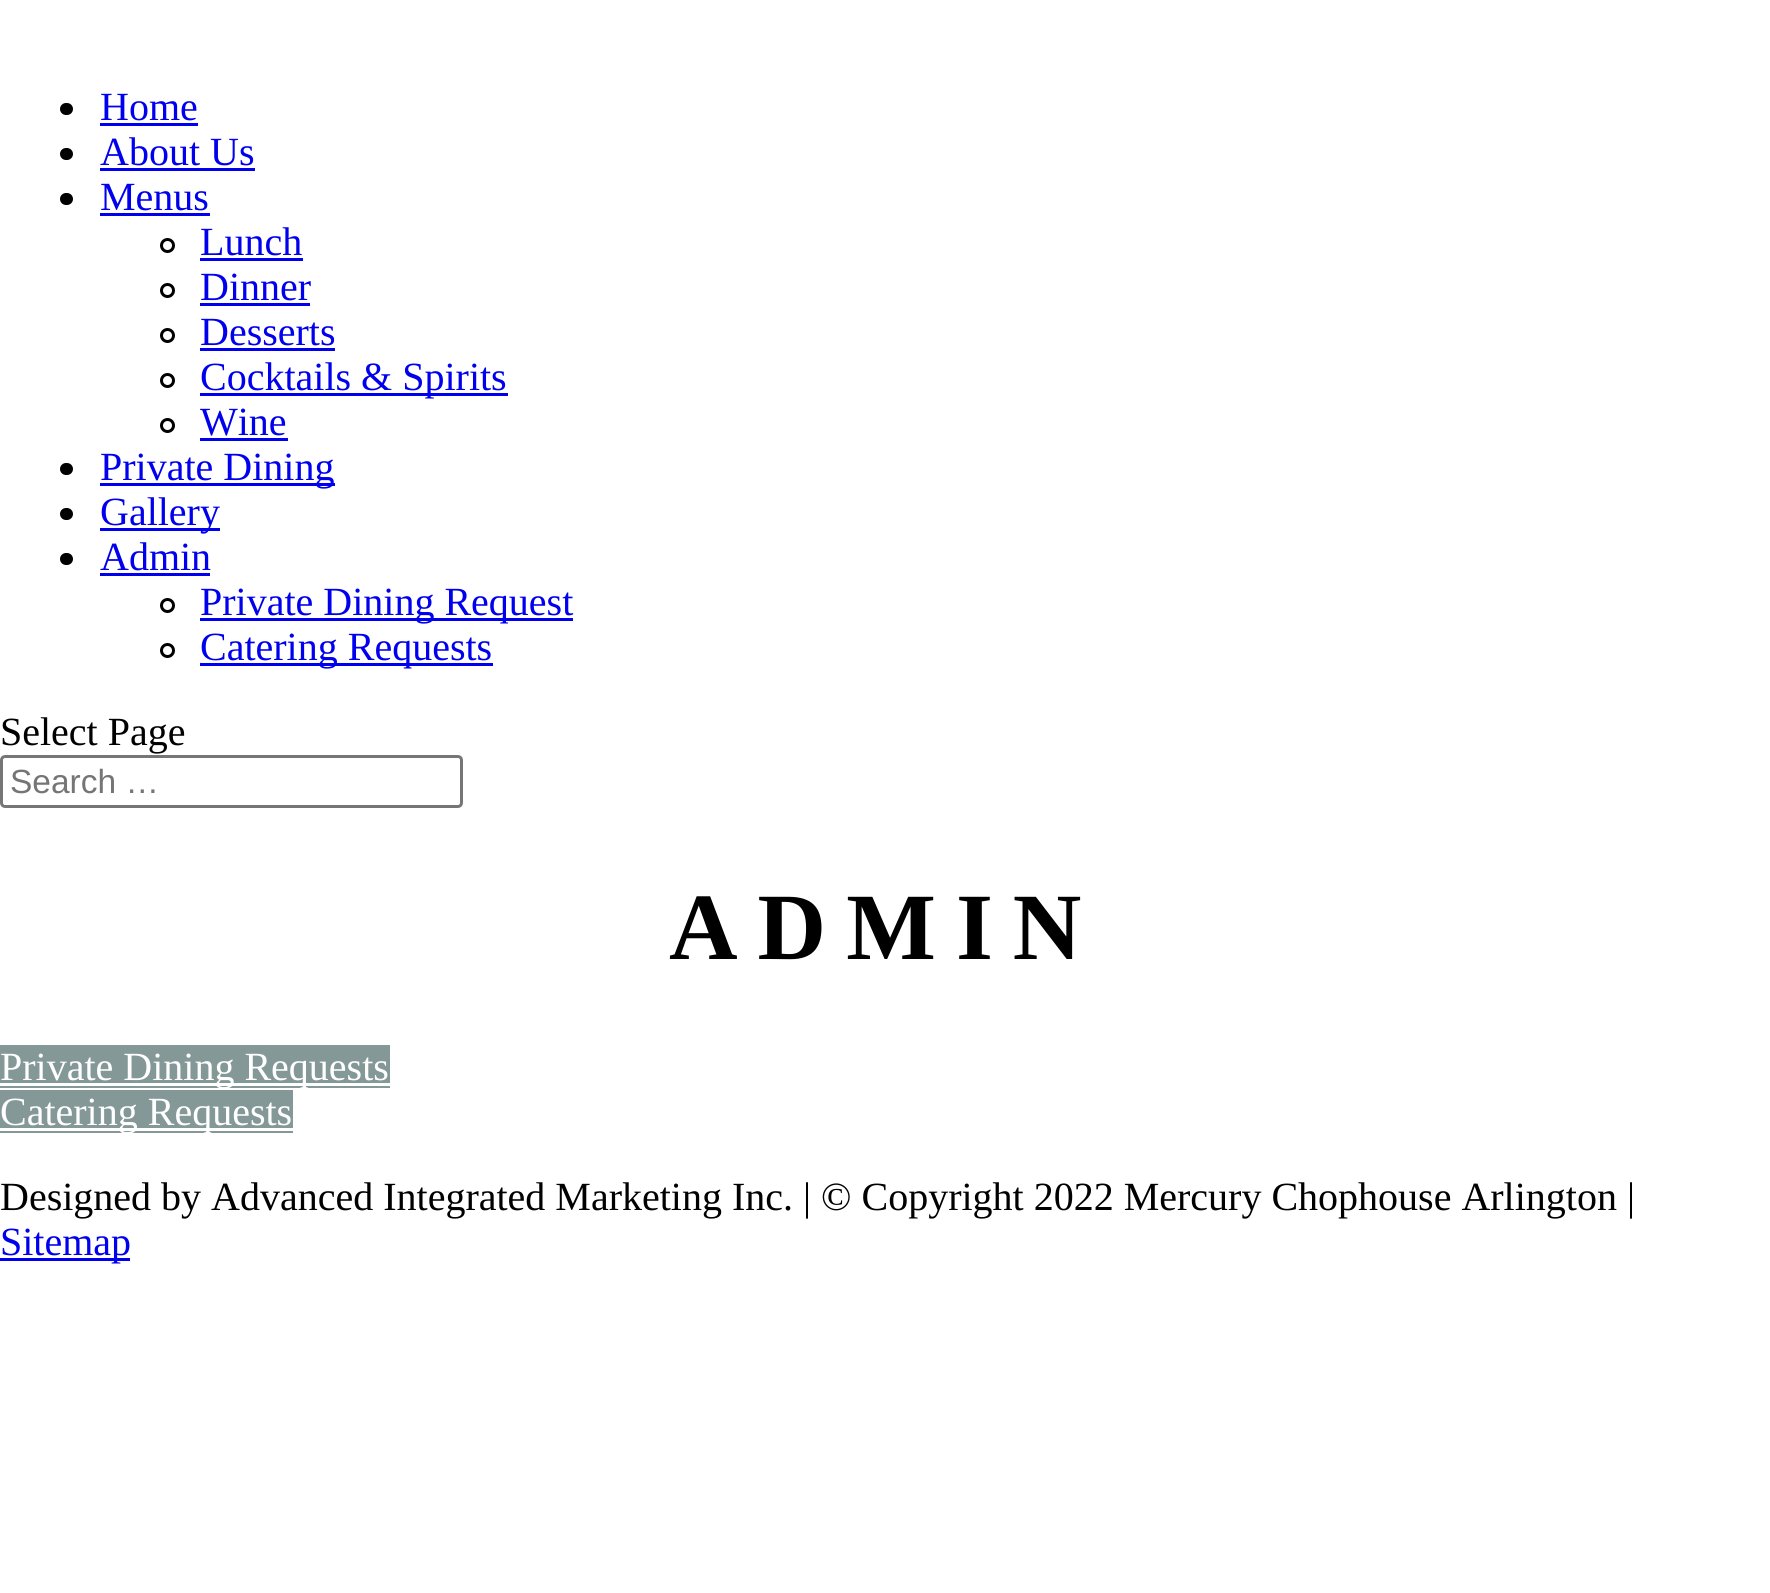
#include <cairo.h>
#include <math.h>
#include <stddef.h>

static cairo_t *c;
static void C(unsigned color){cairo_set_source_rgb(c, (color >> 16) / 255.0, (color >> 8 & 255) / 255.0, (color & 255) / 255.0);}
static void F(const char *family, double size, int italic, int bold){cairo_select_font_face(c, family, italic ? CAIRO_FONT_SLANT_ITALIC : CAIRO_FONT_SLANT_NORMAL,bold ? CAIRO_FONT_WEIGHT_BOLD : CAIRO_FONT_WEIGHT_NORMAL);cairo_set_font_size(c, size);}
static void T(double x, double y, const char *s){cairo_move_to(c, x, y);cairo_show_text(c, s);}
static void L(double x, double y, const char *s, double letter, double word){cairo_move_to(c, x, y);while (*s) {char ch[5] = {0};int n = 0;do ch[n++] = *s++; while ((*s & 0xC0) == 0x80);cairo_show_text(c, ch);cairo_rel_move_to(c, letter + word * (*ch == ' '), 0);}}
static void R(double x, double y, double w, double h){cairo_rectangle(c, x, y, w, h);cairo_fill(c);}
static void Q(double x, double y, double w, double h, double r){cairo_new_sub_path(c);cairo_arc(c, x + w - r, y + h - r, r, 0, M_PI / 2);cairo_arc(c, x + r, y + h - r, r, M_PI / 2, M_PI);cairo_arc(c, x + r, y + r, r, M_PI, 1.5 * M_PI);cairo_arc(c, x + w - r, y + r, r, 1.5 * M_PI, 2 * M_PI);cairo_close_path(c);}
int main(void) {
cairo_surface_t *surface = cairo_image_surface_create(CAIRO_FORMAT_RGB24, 1770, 1593);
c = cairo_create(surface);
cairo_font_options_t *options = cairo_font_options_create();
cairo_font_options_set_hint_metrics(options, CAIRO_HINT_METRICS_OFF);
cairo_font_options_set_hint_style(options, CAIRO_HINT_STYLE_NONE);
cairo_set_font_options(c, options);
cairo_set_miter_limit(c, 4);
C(0xffffff);
cairo_paint(c);
C(0x000000);
Q(60,103,13,12,6);
cairo_fill(c);
F("Liberation Serif",40,0,0);
C(0x0000ee);
T(100,120,"Home");
R(100,123,98,3);
C(0x000000);
Q(60,148,13,12,6);
cairo_fill(c);
C(0x0000ee);
T(100,165,"About Us");
R(100,168,155,3);
C(0x000000);
Q(60,193,13,12,6);
cairo_fill(c);
C(0x0000ee);
T(100,210,"Menus");
R(100,213,110,3);
cairo_new_path(c);
cairo_arc(c,167.5,245.5,6,0,2 * M_PI);
C(0x000000);
cairo_set_line_width(c,3);
cairo_stroke(c);
C(0x0000ee);
T(200,255,"Lunch");
R(200,258,103,3);
cairo_new_path(c);
cairo_arc(c,167.5,290.5,6,0,2 * M_PI);
C(0x000000);
cairo_stroke(c);
C(0x0000ee);
T(200,300,"Dinner");
R(200,303,110,3);
cairo_new_path(c);
cairo_arc(c,167.5,335.5,6,0,2 * M_PI);
C(0x000000);
cairo_stroke(c);
C(0x0000ee);
T(200,345,"Desserts");
R(200,348,135,3);
cairo_new_path(c);
cairo_arc(c,167.5,380.5,6,0,2 * M_PI);
C(0x000000);
cairo_stroke(c);
C(0x0000ee);
R(200,393,308,3);
T(200,390,"Cocktails & Spirits");
cairo_new_path(c);
cairo_arc(c,167.5,425.5,6,0,2 * M_PI);
C(0x000000);
cairo_stroke(c);
C(0x0000ee);
T(200,435,"Wine");
R(200,438,88,3);
C(0x000000);
Q(60,463,13,12,6);
cairo_fill(c);
C(0x0000ee);
R(100,483,235,3);
T(100,480,"Private Dining");
C(0x000000);
Q(60,508,13,12,6);
cairo_fill(c);
C(0x0000ee);
R(100,528,120,3);
T(100,525,"Gallery");
C(0x000000);
Q(60,553,13,12,6);
cairo_fill(c);
C(0x0000ee);
T(100,570,"Admin");
R(100,573,110,3);
cairo_new_path(c);
cairo_arc(c,167.5,605.5,6,0,2 * M_PI);
C(0x000000);
cairo_stroke(c);
C(0x0000ee);
R(200,618,373,3);
T(200,615,"Private Dining Request");
cairo_new_path(c);
cairo_arc(c,167.5,650.5,6,0,2 * M_PI);
C(0x000000);
cairo_stroke(c);
C(0x0000ee);
R(200,663,293,3);
T(200,660,"Catering Requests");
C(0x000000);
T(0,745,"Select Page");
Q(1.5,756.5,460,50,3.5);
C(0x767676);
cairo_stroke(c);
F("Liberation Sans",33.5,0,0);
C(0x757575);
T(10,793,"Search …");
F("Liberation Serif",95,0,1);
C(0x000000);
L(669,959,"ADMIN",20,0);
C(0x839897);
R(0,1045,390,43);
C(0xffffff);
R(0,1083,390,3);
F("Liberation Serif",40,0,0);
T(0,1080,"Private Dining Requests");
C(0x839897);
R(0,1090,293,43);
C(0xffffff);
R(0,1128,293,3);
T(0,1125,"Catering Requests");
C(0x000000);
T(0,1210,"Designed by Advanced Integrated Marketing Inc. | © Copyright 2022 Mercury Chophouse Arlington |");
C(0x0000ee);
R(0,1258,130,3);
T(0,1255,"Sitemap");
cairo_surface_write_to_png(surface, "o.png");
cairo_font_options_destroy(options);
cairo_destroy(c);
cairo_surface_destroy(surface);
return 0;
}
